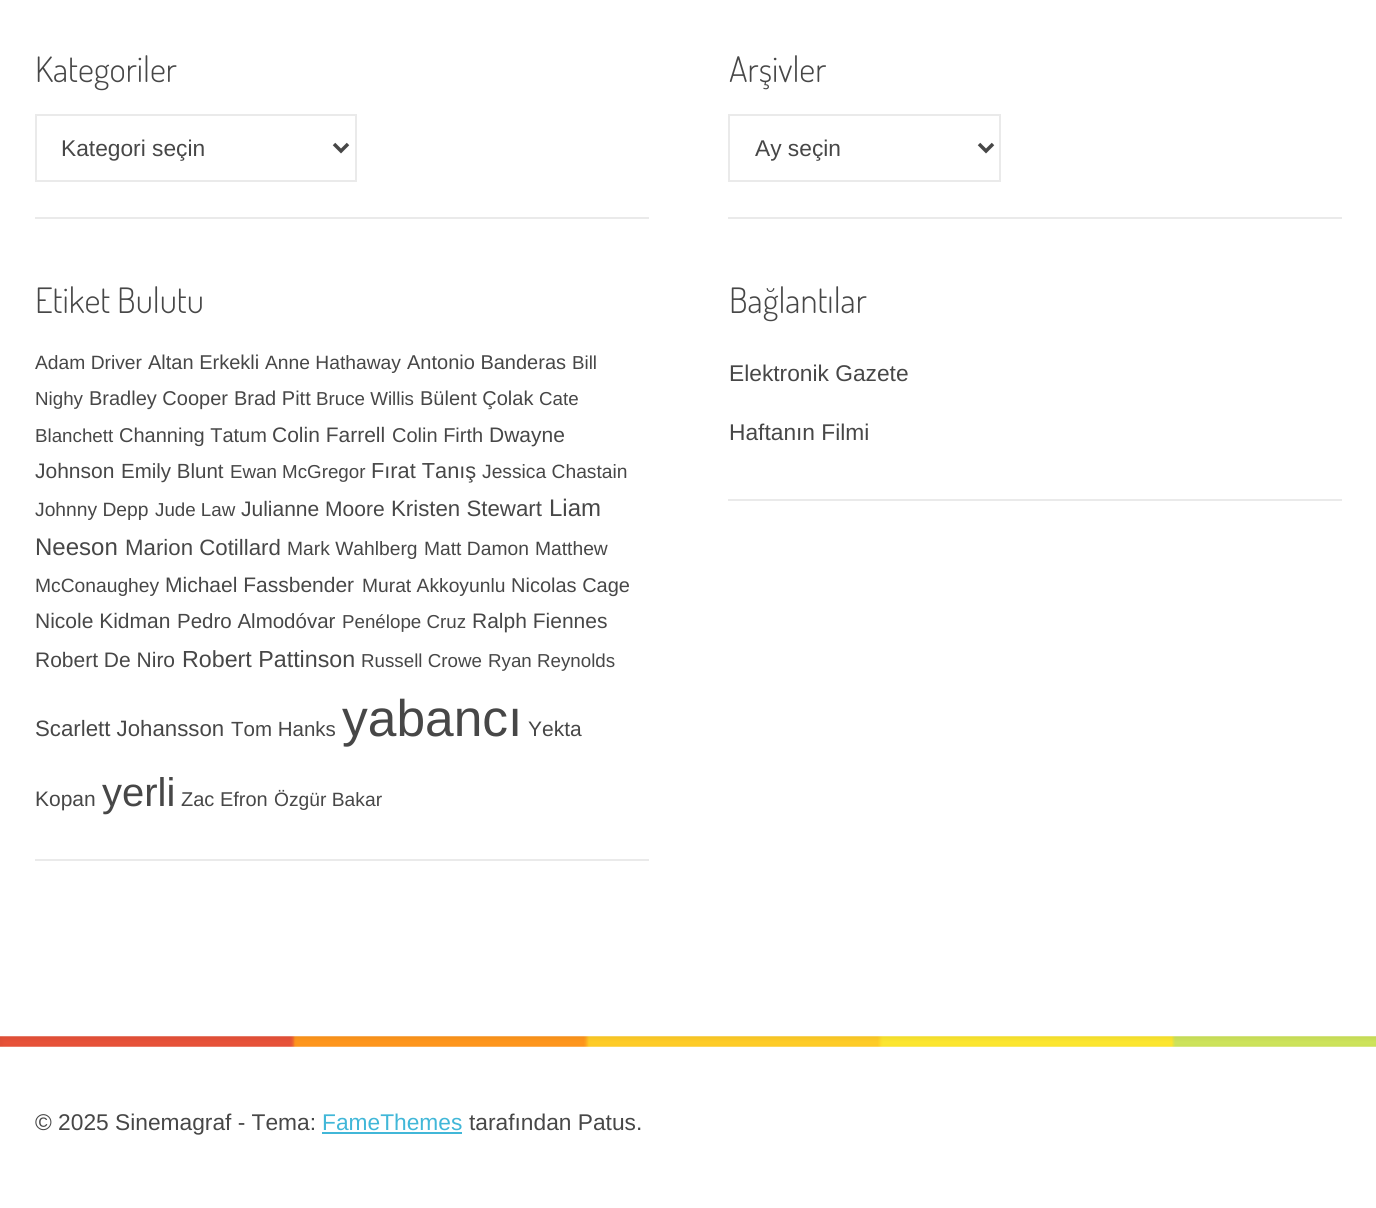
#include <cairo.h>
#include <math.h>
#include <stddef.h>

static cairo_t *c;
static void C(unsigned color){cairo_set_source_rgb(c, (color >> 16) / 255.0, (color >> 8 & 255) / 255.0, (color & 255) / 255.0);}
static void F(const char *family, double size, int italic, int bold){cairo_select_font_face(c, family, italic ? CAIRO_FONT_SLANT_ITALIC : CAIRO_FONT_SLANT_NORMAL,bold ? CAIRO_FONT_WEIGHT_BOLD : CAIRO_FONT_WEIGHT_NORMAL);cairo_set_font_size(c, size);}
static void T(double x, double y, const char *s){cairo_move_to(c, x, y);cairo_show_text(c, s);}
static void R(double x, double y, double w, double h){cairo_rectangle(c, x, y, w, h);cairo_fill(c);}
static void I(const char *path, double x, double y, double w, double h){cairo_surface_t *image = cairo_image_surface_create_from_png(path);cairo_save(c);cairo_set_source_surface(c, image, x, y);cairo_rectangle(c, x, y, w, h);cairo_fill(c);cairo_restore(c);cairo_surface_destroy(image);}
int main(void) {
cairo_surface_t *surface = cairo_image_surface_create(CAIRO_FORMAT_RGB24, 1376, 1208);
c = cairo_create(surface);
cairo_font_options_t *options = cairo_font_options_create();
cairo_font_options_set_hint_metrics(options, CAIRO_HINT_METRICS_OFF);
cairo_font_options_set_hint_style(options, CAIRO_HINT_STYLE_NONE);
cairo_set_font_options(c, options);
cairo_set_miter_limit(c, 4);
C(0xffffff);
cairo_paint(c);
C(0xeaeaea);
R(35,217,614,2);
F("Dosis Light",35,0,0);
C(0x474747);
T(35,82,"Kategoriler");
cairo_rectangle(c,36,115,320,66);
C(0xeaeaea);
cairo_stroke(c);
cairo_new_path(c);
cairo_move_to(c,334,144);
cairo_line_to(c,341,151);
cairo_line_to(c,348,144);
C(0x474747);
cairo_set_line_width(c,3.5);
cairo_stroke(c);
F("Liberation Sans",22.75,0,0);
T(61,156,"Kategori seçin");
C(0xeaeaea);
R(728,217,614,2);
F("Dosis Light",35,0,0);
C(0x474747);
T(729,82,"Arşivler");
cairo_rectangle(c,729,115,271,66);
C(0xeaeaea);
cairo_set_line_width(c,2);
cairo_stroke(c);
cairo_new_path(c);
cairo_move_to(c,979,144);
cairo_line_to(c,986,151);
cairo_line_to(c,993,144);
C(0x474747);
cairo_set_line_width(c,3.5);
cairo_stroke(c);
F("Liberation Sans",22.75,0,0);
T(755,156,"Ay seçin");
C(0xeaeaea);
R(35,859,614,2);
F("Dosis Light",35,0,0);
C(0x474747);
T(35,313,"Etiket Bulutu");
F("Liberation Sans",19.25,0,0);
T(35,369,"Adam Driver");
F("Liberation Sans",20,0,0);
T(148,369,"Altan Erkekli");
F("Liberation Sans",19.25,0,0);
T(265,369,"Anne Hathaway");
F("Liberation Sans",20,0,0);
T(407,369,"Antonio Banderas");
F("Liberation Sans",18.75,0,0);
T(572,369,"Bill");
T(35,405,"Nighy");
F("Liberation Sans",20,0,0);
T(89,405,"Bradley Cooper");
T(234,405,"Brad Pitt");
F("Liberation Sans",18.75,0,0);
T(316,405,"Bruce Willis");
F("Liberation Sans",20,0,0);
T(420,405,"Bülent Çolak");
F("Liberation Sans",18.75,0,0);
T(539,405,"Cate");
T(35,442,"Blanchett");
F("Liberation Sans",20,0,0);
T(119,442,"Channing Tatum");
F("Liberation Sans",21,0,0);
T(272,442,"Colin Farrell");
F("Liberation Sans",20,0,0);
T(392,442,"Colin Firth");
F("Liberation Sans",21,0,0);
T(489,442,"Dwayne");
T(35,478,"Johnson");
F("Liberation Sans",20.5,0,0);
T(121,478,"Emily Blunt");
F("Liberation Sans",18.75,0,0);
T(230,478,"Ewan McGregor");
F("Liberation Sans",21.75,0,0);
T(371,478,"Fırat Tanış");
F("Liberation Sans",19.25,0,0);
T(482,478,"Jessica Chastain");
T(35,516,"Johnny Depp");
F("Liberation Sans",18.75,0,0);
T(155,516,"Jude Law");
F("Liberation Sans",21,0,0);
T(241,516,"Julianne Moore");
F("Liberation Sans",22.25,0,0);
T(391,516,"Kristen Stewart");
F("Liberation Sans",24,0,0);
T(549,516,"Liam");
T(35,555,"Neeson");
F("Liberation Sans",22.25,0,0);
T(125,555,"Marion Cotillard");
F("Liberation Sans",19.25,0,0);
T(287,555,"Mark Wahlberg");
T(424,555,"Matt Damon");
T(535,555,"Matthew");
T(35,592,"McConaughey");
F("Liberation Sans",21,0,0);
T(165,592,"Michael Fassbender");
F("Liberation Sans",19.25,0,0);
T(362,592,"Murat Akkoyunlu");
F("Liberation Sans",20,0,0);
T(511,592,"Nicolas Cage");
F("Liberation Sans",21,0,0);
T(35,628,"Nicole Kidman");
F("Liberation Sans",20.5,0,0);
T(177,628,"Pedro Almodóvar");
F("Liberation Sans",18.75,0,0);
T(342,628,"Penélope Cruz");
F("Liberation Sans",21,0,0);
T(472,628,"Ralph Fiennes");
T(35,667,"Robert De Niro");
F("Liberation Sans",23.25,0,0);
T(182,667,"Robert Pattinson");
F("Liberation Sans",18.75,0,0);
T(361,667,"Russell Crowe");
T(488,667,"Ryan Reynolds");
F("Liberation Sans",22.25,0,0);
T(35,736,"Scarlett Johansson");
F("Liberation Sans",20.5,0,0);
T(231,736,"Tom Hanks");
F("Liberation Sans",51.5,0,0);
T(342,736,"yabancı");
F("Liberation Sans",21,0,0);
T(528,736,"Yekta");
T(35,806,"Kopan");
F("Liberation Sans",40,0,0);
T(102,806,"yerli");
F("Liberation Sans",20,0,0);
T(181,806,"Zac Efron");
F("Liberation Sans",19.25,0,0);
T(274,806,"Özgür Bakar");
C(0xeaeaea);
R(728,499,614,2);
F("Dosis Light",35,0,0);
C(0x474747);
T(729,313,"Bağlantılar");
F("Liberation Sans",22.75,0,0);
T(729,381,"Elektronik Gazete");
T(729,440,"Haftanın Filmi");
I("1.png",0,1036,1376,11);
T(35,1130,"© 2025 Sinemagraf - Tema:");
C(0x41b7d8);
T(322,1130,"FameThemes");
R(322,1132,140,2);
C(0x474747);
T(469,1130,"tarafından Patus.");
cairo_surface_write_to_png(surface, "o.png");
cairo_font_options_destroy(options);
cairo_destroy(c);
cairo_surface_destroy(surface);
return 0;
}
